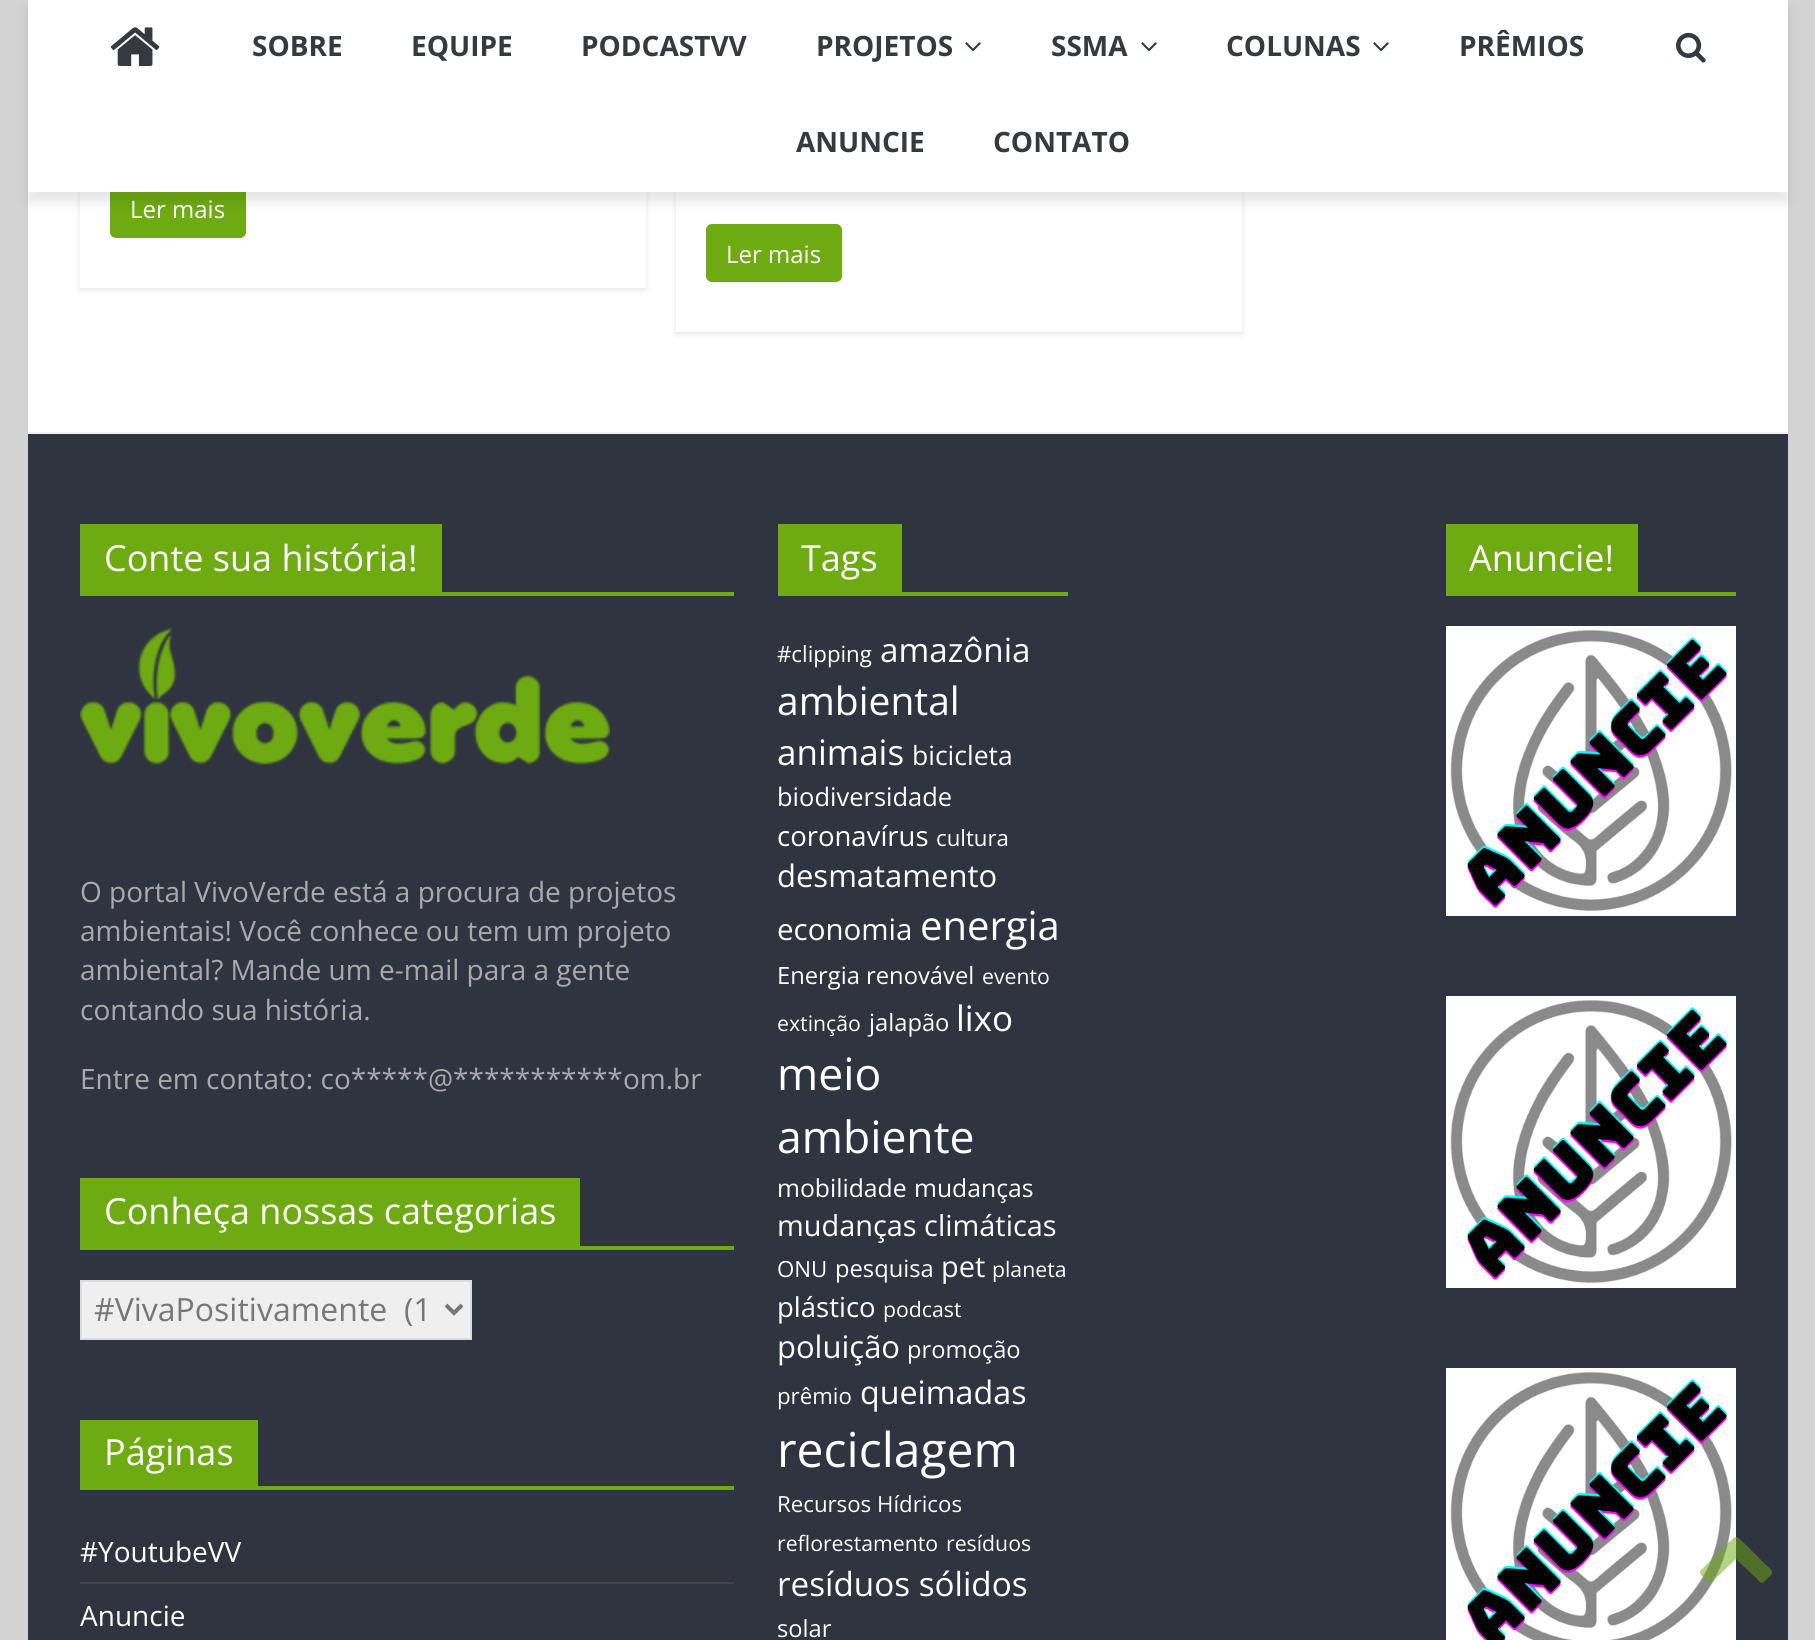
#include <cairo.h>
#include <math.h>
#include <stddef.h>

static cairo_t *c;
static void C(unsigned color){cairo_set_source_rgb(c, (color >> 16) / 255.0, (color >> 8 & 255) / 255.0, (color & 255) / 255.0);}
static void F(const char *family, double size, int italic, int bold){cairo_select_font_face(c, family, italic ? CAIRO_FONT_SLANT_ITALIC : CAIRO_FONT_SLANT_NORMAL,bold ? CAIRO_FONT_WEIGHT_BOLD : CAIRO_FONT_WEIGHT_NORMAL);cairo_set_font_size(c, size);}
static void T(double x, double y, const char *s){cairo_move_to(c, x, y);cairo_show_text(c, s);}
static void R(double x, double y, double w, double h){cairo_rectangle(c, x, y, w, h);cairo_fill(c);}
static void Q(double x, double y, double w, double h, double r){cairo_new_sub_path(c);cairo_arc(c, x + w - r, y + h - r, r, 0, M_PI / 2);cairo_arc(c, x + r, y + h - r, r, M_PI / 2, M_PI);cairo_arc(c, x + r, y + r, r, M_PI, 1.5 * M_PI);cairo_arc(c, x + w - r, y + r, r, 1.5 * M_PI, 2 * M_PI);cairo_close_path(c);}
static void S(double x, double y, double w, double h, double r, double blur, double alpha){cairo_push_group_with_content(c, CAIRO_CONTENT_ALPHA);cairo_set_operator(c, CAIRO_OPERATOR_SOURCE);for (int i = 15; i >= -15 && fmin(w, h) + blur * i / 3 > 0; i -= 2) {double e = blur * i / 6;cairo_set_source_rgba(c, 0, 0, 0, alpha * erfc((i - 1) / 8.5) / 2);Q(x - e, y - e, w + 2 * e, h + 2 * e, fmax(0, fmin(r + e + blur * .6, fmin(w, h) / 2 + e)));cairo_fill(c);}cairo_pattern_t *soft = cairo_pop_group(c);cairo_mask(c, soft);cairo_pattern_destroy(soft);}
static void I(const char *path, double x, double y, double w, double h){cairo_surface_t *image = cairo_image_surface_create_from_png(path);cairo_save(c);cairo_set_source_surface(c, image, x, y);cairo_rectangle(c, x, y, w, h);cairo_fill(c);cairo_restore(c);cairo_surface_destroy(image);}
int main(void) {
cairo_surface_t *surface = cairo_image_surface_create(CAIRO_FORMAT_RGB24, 1815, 1640);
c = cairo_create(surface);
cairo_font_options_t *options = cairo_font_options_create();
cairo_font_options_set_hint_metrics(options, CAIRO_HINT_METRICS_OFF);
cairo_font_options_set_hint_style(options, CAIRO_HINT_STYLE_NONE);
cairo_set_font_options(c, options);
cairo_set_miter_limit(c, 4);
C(0xd3d3d3);
cairo_paint(c);
C(0xffffff);
R(28,192,1760,240);
cairo_save(c);
cairo_set_fill_rule(c,CAIRO_FILL_RULE_EVEN_ODD);
cairo_new_path(c);
cairo_move_to(c,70,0);
cairo_line_to(c,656,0);
cairo_line_to(c,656,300);
cairo_line_to(c,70,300);
cairo_close_path(c);
cairo_move_to(c,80,-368);
cairo_line_to(c,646,-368);
cairo_line_to(c,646,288);
cairo_line_to(c,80,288);
cairo_close_path(c);
cairo_clip(c);
C(0x000000);
S(80,-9,566,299,0,3,.1);
cairo_restore(c);
C(0x6eaa11);
Q(110,180,136,58,6);
cairo_fill(c);
C(0x000000);
S(28,10,1760,192,0,6,.1);
cairo_save(c);
cairo_set_fill_rule(c,CAIRO_FILL_RULE_EVEN_ODD);
cairo_new_path(c);
cairo_move_to(c,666,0);
cairo_line_to(c,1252,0);
cairo_line_to(c,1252,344);
cairo_line_to(c,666,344);
cairo_close_path(c);
cairo_move_to(c,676,-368);
cairo_line_to(c,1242,-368);
cairo_line_to(c,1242,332);
cairo_line_to(c,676,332);
cairo_close_path(c);
cairo_clip(c);
S(676,-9,566,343,0,3,.1);
cairo_restore(c);
C(0xffffff);
R(28,0,1760,192);
I("1.png",110,27,50,39);
F("Open Sans",28,0,1);
C(0x343a40);
T(252,56,"SOBRE");
T(411,56,"EQUIPE");
T(581,56,"PODCASTVV");
T(816,56,"PROJETOS");
I("2.png",965,42,16,10);
T(1051,56,"SSMA");
I("2.png",1141,42,16,10);
T(1226,56,"COLUNAS");
I("2.png",1373,42,16,10);
T(1459,56,"PRÊMIOS");
T(796,152,"ANUNCIE");
T(993,152,"CONTATO");
I("3.png",1676,32,30,31);
F("Open Sans",24,0,0);
C(0xffffff);
T(130,218,"Ler mais");
C(0x6eaa11);
Q(706,224,136,58,6);
cairo_fill(c);
C(0xffffff);
T(726,263,"Ler mais");
C(0x303440);
R(28,434,1760,1206);
C(0xf2f2f2);
R(28,432,1760,2);
C(0x6eaa11);
R(80,592,654,4);
R(80,524,362,68);
F("Open Sans",36,0,0);
C(0xffffff);
T(104,571,"Conte sua história!");
I("4.png",80,627,530,138);
F("Open Sans",28,0,0);
C(0xaaaaaa);
T(80,902,"O portal VivoVerde está a procura de projetos");
T(80,941,"ambientais! Você conhece ou tem um projeto");
T(80,980,"ambiental? Mande um e-mail para a gente");
T(80,1020,"contando sua história.");
T(80,1089,"Entre em contato: co*****");
T(428,1089,"@***********");
T(623,1089,"om.br");
C(0x6eaa11);
R(80,1246,654,4);
R(80,1178,500,68);
F("Open Sans",36,0,0);
C(0xffffff);
T(104,1224,"Conheça nossas categorias");
C(0xefefef);
cairo_rectangle(c,81,1281,390,58);
cairo_fill_preserve(c);
C(0xdddddd);
cairo_stroke(c);
cairo_new_path(c);
cairo_move_to(c,446,1305);
cairo_line_to(c,454,1313);
cairo_line_to(c,462,1305);
C(0x777777);
cairo_set_line_width(c,4);
cairo_stroke(c);
F("Open Sans",32,0,0);
T(94,1321,"#VivaPositivamente  (1");
C(0x6eaa11);
R(80,1486,654,4);
R(80,1420,178,66);
F("Open Sans",36,0,0);
C(0xffffff);
T(104,1465,"Páginas");
C(0x444444);
R(80,1582,654,2);
F("Open Sans",28,0,0);
C(0xffffff);
T(80,1562,"#YoutubeVV");
T(80,1626,"Anuncie");
C(0x6eaa11);
R(778,592,290,4);
R(778,524,124,68);
F("Open Sans",36,0,0);
C(0xffffff);
T(801,571,"Tags");
F("Open Sans",22.25,0,0);
T(777,662,"#clipping");
F("Open Sans",33.25,0,0);
T(880,662,"amazônia");
F("Open Sans",39,0,0);
T(777,715,"ambiental");
F("Open Sans",35,0,0);
T(777,765,"animais");
F("Open Sans",26.5,0,0);
T(912,765,"bicicleta");
F("Open Sans",25.5,0,0);
T(777,806,"biodiversidade");
F("Open Sans",27.5,0,0);
T(777,846,"coronavírus");
F("Open Sans",22.25,0,0);
T(936,846,"cultura");
F("Open Sans",31,0,0);
T(777,887,"desmatamento");
F("Open Sans",29.5,0,0);
T(777,940,"economia");
F("Open Sans",40,0,0);
T(920,940,"energia");
F("Open Sans",23.75,0,0);
T(777,984,"Energia renovável");
F("Open Sans",21.25,0,0);
T(982,984,"evento");
T(777,1031,"extinção");
F("Open Sans",23.75,0,0);
T(869,1031,"jalapão");
F("Open Sans",35,0,0);
T(956,1031,"lixo");
F("Open Sans",44.5,0,0);
T(777,1090,"meio");
T(777,1153,"ambiente");
F("Open Sans",24.75,0,0);
T(777,1197,"mobilidade");
T(914,1197,"mudanças");
F("Open Sans",28.9,0,0);
T(777,1236,"mudanças climáticas");
F("Open Sans",22.25,0,0);
T(777,1277,"ONU");
F("Open Sans",23.75,0,0);
T(835,1277,"pesquisa");
F("Open Sans",28.9,0,0);
T(941,1277,"pet");
F("Open Sans",21.25,0,0);
T(992,1277,"planeta");
F("Open Sans",27.5,0,0);
T(777,1317,"plástico");
F("Open Sans",21.25,0,0);
T(883,1317,"podcast");
F("Open Sans",31,0,0);
T(777,1358,"poluição");
F("Open Sans",23.75,0,0);
T(907,1358,"promoção");
F("Open Sans",22.25,0,0);
T(777,1404,"prêmio");
F("Open Sans",32.25,0,0);
T(860,1404,"queimadas");
F("Open Sans",48,0,0);
T(777,1467,"reciclagem");
F("Open Sans",22.25,0,0);
T(777,1512,"Recursos Hídricos");
F("Open Sans",21.25,0,0);
T(777,1551,"reflorestamento");
T(946,1551,"resíduos");
F("Open Sans",33.25,0,0);
T(777,1596,"resíduos sólidos");
F("Open Sans",23.75,0,0);
T(777,1637,"solar");
C(0x6eaa11);
R(1446,592,290,4);
R(1446,524,192,68);
F("Open Sans",36,0,0);
C(0xffffff);
T(1469,571,"Anuncie!");
I("5.png",1446,626,290,290);
I("6.png",1446,996,290,292);
I("7.png",1446,1368,290,272);
cairo_set_source_rgba(c,0.431,0.667,0.067,0.5);
cairo_new_path(c);
cairo_move_to(c,1771,1575);
cairo_line_to(c,1765,1581);
cairo_curve_to(c,1761,1585,1760,1582,1756,1578);
cairo_line_to(c,1736,1559);
cairo_line_to(c,1716,1578);
cairo_curve_to(c,1709,1586,1710,1584,1702,1576);
cairo_curve_to(c,1697,1571,1702,1570,1706,1565);
cairo_line_to(c,1728,1543);
cairo_curve_to(c,1737,1535,1735,1535,1744,1543);
cairo_line_to(c,1766,1565);
cairo_curve_to(c,1767,1566,1775,1571,1771,1575);
cairo_close_path(c);
cairo_fill(c);
cairo_surface_write_to_png(surface, "o.png");
cairo_font_options_destroy(options);
cairo_destroy(c);
cairo_surface_destroy(surface);
return 0;
}
